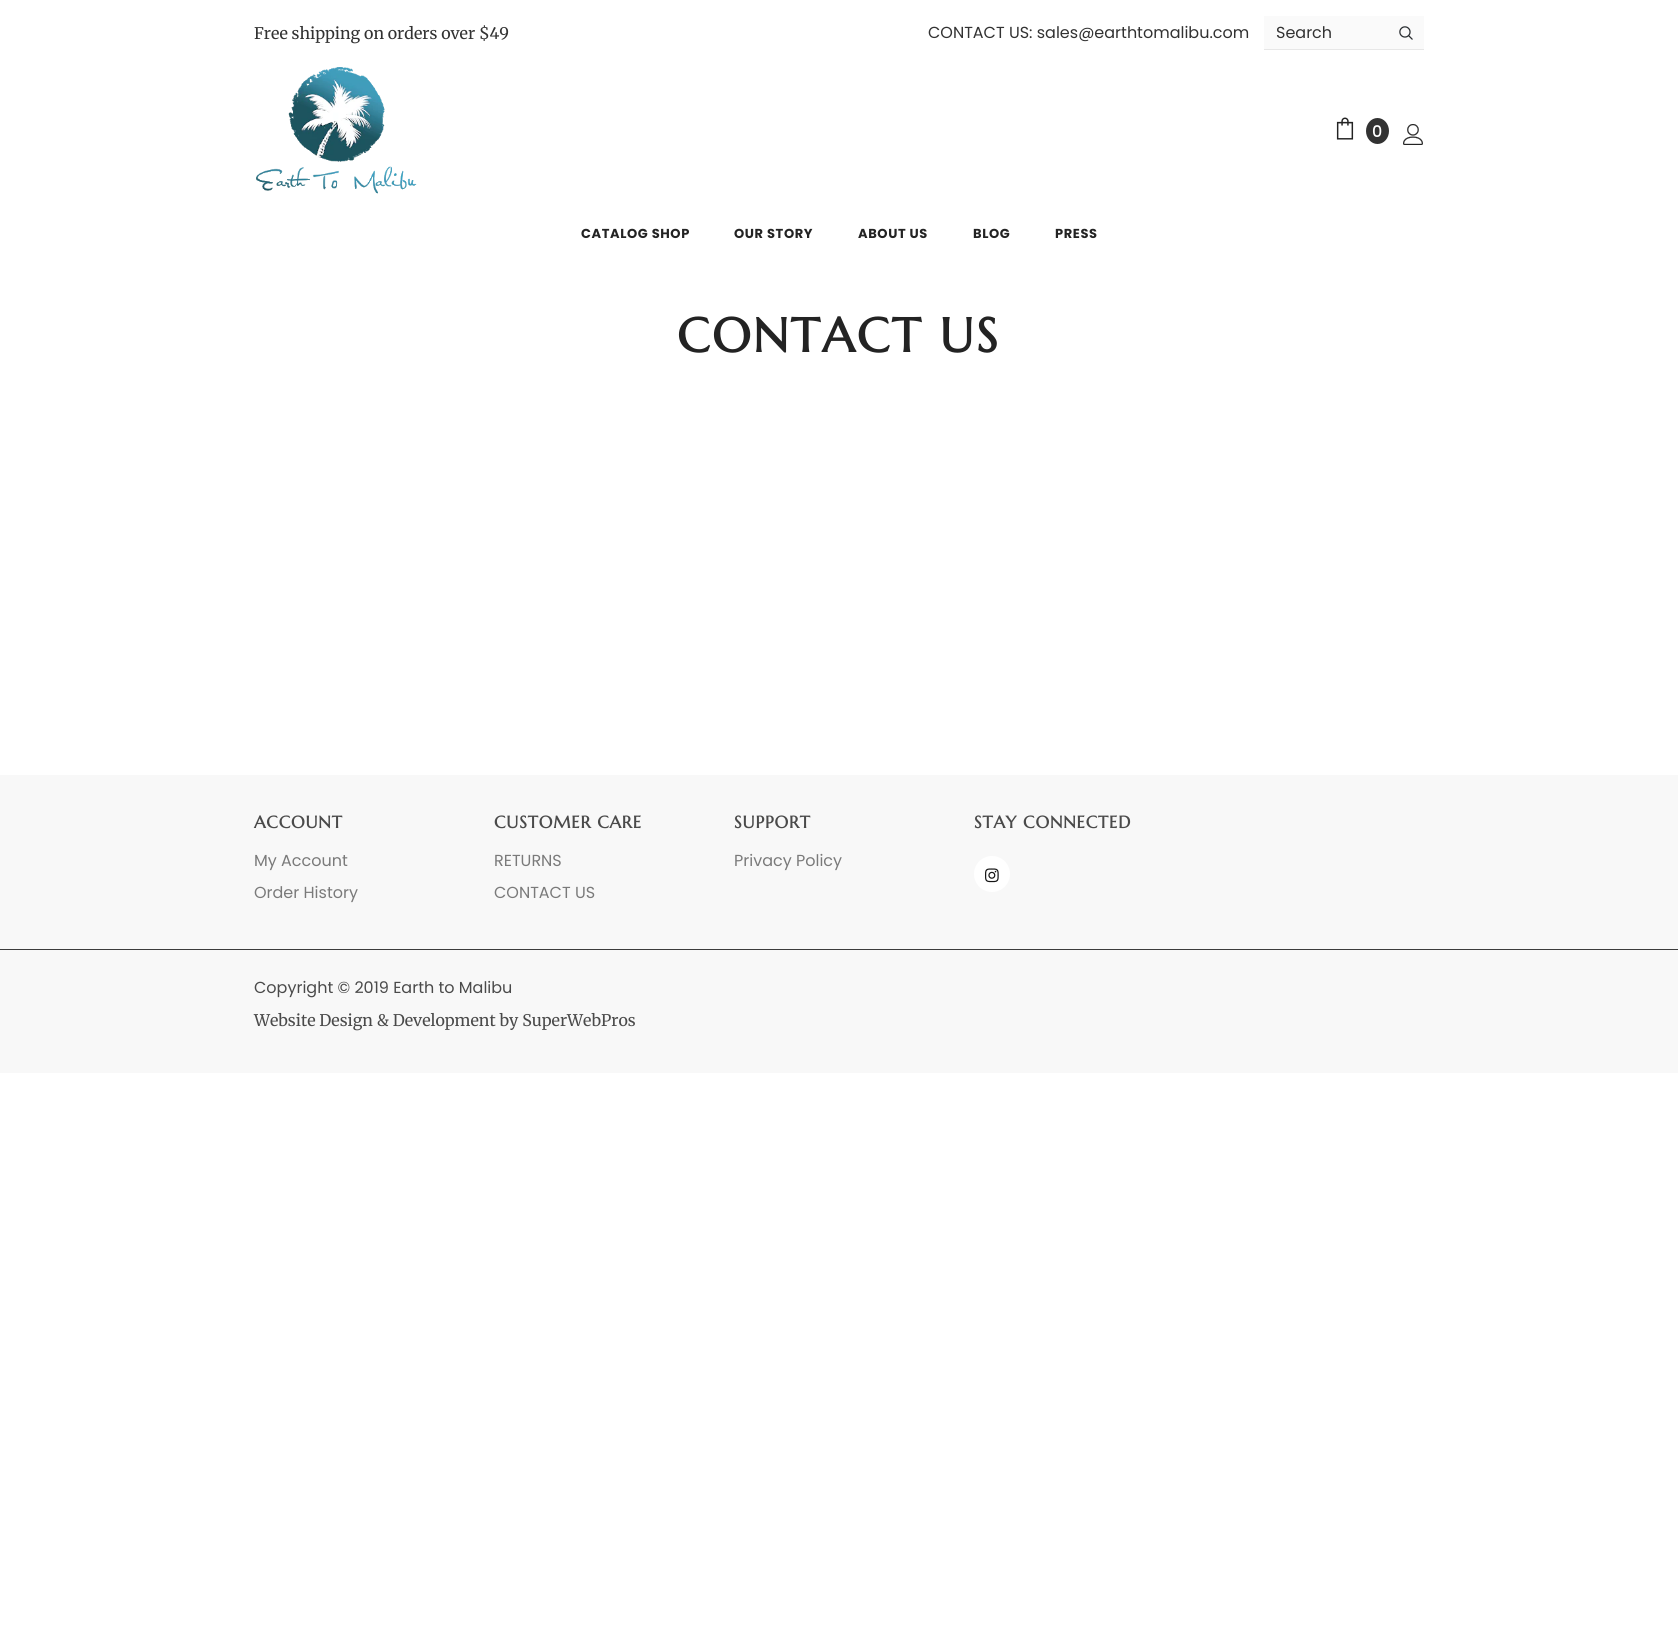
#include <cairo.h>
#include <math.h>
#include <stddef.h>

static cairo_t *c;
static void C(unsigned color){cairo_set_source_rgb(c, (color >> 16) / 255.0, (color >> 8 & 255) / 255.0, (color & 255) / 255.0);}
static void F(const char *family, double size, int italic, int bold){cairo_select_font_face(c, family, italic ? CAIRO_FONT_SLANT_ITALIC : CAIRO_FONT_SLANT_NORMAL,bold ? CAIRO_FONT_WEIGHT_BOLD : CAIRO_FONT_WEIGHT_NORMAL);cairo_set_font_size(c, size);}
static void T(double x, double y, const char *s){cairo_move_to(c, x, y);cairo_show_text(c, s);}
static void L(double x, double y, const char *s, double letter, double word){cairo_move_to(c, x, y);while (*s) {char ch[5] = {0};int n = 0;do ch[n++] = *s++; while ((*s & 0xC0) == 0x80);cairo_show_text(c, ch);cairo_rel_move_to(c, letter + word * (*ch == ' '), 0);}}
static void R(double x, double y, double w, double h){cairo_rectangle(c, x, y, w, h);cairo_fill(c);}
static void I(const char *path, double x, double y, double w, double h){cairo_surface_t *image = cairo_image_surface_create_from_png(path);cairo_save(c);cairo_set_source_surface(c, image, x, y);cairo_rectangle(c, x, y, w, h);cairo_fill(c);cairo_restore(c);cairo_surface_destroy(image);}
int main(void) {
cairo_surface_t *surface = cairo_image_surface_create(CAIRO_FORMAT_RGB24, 1678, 1647);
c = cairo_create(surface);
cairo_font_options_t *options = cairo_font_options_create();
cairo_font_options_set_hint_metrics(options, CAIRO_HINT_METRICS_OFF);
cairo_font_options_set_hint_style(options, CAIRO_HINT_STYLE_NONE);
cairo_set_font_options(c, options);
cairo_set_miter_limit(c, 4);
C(0xffffff);
cairo_paint(c);
F("Merriweather Light",16,0,0);
C(0x323232);
T(254,39,"Free shipping on orders over $49");
F("Poppins",16,0,0);
T(928,38,"CONTACT US: sales@earthtomalibu.com");
C(0xfafafa);
R(1264,16,160,33);
C(0xe7e7e7);
R(1264,49,160,1);
C(0x323232);
T(1276,38,"Search");
I("1.png",1399,26,14,14);
I("2.png",256,67,161,127);
I("3.png",1336,117,18,23);
cairo_new_path(c);
cairo_move_to(c,1377.5,118);
cairo_curve_to(c,1384,118,1389,124,1389,131);
cairo_curve_to(c,1389,138,1384,144,1377.5,144);
cairo_curve_to(c,1371,144,1366,138,1366,131);
cairo_curve_to(c,1366,124,1371,118,1377.5,118);
cairo_close_path(c);
cairo_fill(c);
F("Poppins Medium",16,0,0);
C(0xffffff);
T(1372,137,"0");
I("4.png",1403,124,20,21);
F("Poppins",13,0,1);
C(0x232323);
L(581,238,"CATALOG SHOP",.6,0);
L(734,238,"OUR STORY",.6,0);
L(858,238,"ABOUT US",.6,0);
L(973,238,"BLOG",.6,0);
L(1055,238,"PRESS",.6,0);
F("Marcellus",48,0,1);
L(677,352,"CONTACT US",2.4,0);
C(0xf8f8f8);
R(0,775,1678,298);
F("Marcellus",17,0,1);
C(0x4a4a4a);
L(254,828,"ACCOUNT",.8,0);
F("Poppins",16,0,0);
C(0x7a7a7a);
T(254,866,"My Account");
T(254,898,"Order History");
F("Marcellus",17,0,1);
C(0x4a4a4a);
L(494,828,"CUSTOMER CARE",.8,0);
F("Poppins",16,0,0);
C(0x7a7a7a);
T(494,866,"RETURNS");
T(494,898,"CONTACT US");
F("Marcellus",17,0,1);
C(0x4a4a4a);
L(734,828,"SUPPORT",.8,0);
F("Poppins",16,0,0);
C(0x7a7a7a);
T(734,866,"Privacy Policy");
F("Marcellus",17,0,1);
C(0x4a4a4a);
L(974,828,"STAY CONNECTED",.8,0);
C(0xffffff);
cairo_new_path(c);
cairo_arc(c,992,874,18,0,2 * M_PI);
cairo_fill(c);
I("5.png",985,868,14,15);
C(0x3b3b3b);
R(0,949,1678,1);
F("Poppins",16,0,0);
C(0x4a4a4a);
T(254,993,"Copyright © 2019 Earth to Malibu");
F("Merriweather Light",16,0,0);
T(254,1026,"Website Design & Development by SuperWebPros");
cairo_surface_write_to_png(surface, "o.png");
cairo_font_options_destroy(options);
cairo_destroy(c);
cairo_surface_destroy(surface);
return 0;
}
